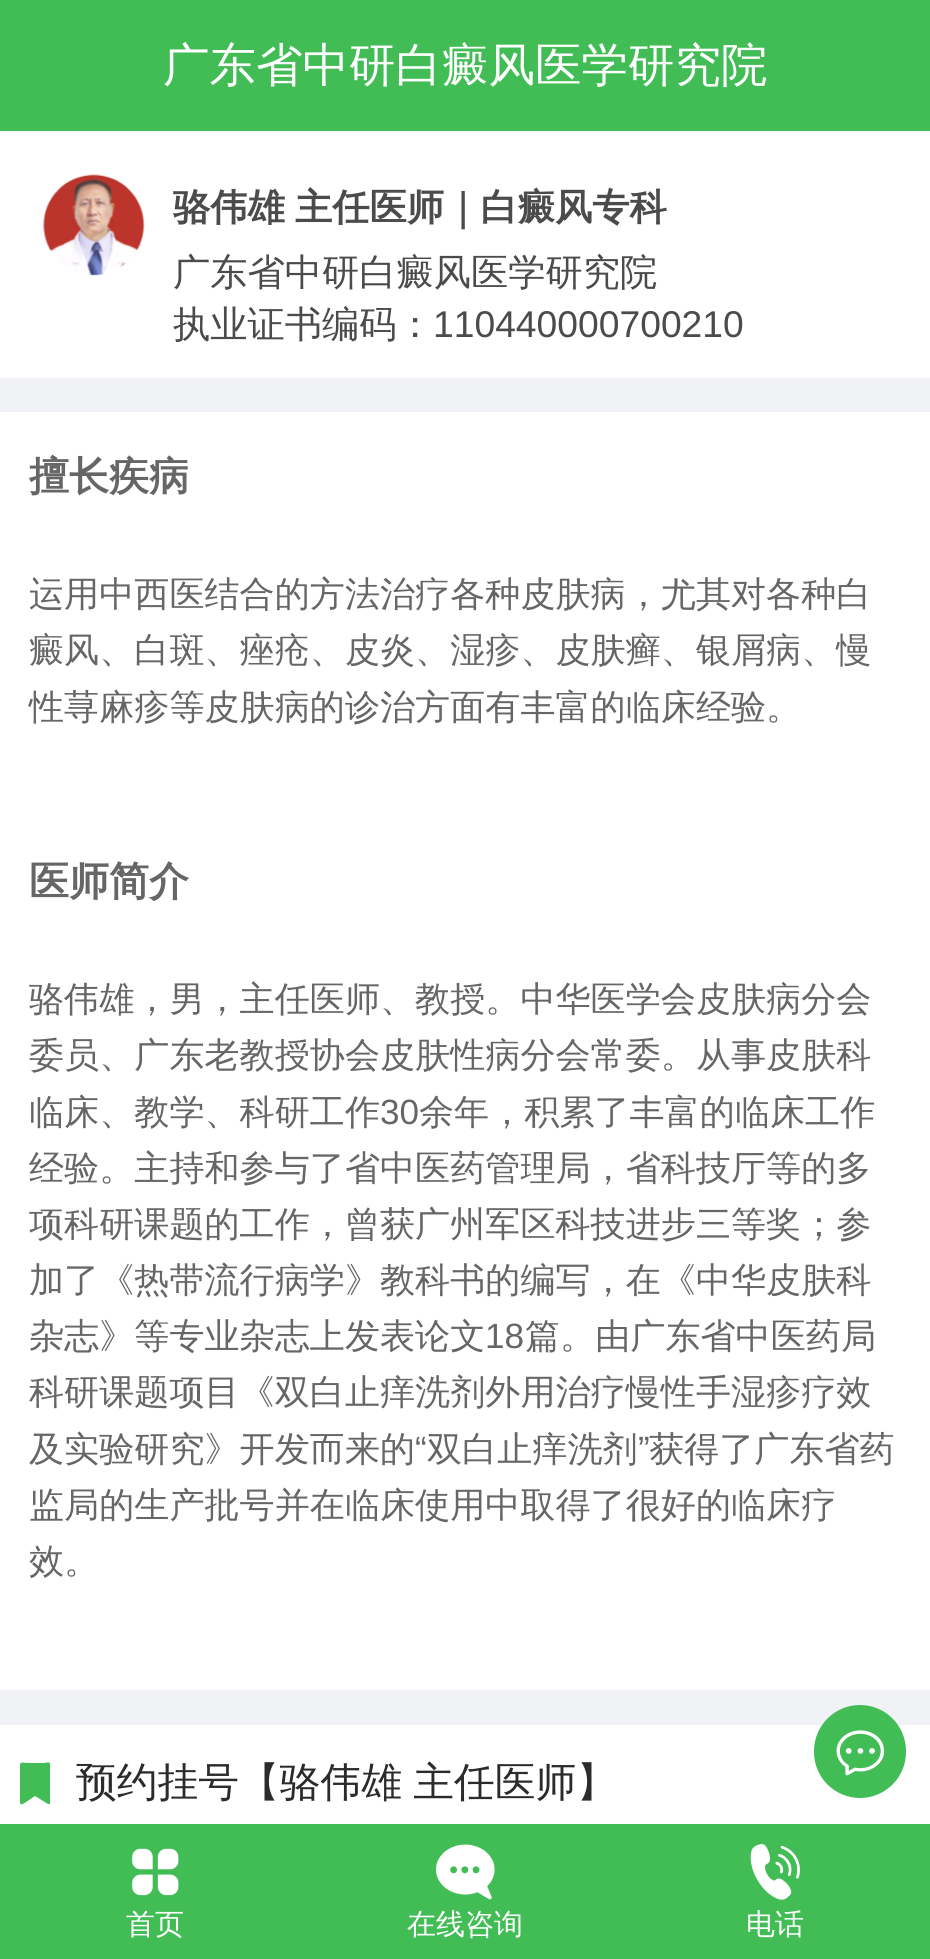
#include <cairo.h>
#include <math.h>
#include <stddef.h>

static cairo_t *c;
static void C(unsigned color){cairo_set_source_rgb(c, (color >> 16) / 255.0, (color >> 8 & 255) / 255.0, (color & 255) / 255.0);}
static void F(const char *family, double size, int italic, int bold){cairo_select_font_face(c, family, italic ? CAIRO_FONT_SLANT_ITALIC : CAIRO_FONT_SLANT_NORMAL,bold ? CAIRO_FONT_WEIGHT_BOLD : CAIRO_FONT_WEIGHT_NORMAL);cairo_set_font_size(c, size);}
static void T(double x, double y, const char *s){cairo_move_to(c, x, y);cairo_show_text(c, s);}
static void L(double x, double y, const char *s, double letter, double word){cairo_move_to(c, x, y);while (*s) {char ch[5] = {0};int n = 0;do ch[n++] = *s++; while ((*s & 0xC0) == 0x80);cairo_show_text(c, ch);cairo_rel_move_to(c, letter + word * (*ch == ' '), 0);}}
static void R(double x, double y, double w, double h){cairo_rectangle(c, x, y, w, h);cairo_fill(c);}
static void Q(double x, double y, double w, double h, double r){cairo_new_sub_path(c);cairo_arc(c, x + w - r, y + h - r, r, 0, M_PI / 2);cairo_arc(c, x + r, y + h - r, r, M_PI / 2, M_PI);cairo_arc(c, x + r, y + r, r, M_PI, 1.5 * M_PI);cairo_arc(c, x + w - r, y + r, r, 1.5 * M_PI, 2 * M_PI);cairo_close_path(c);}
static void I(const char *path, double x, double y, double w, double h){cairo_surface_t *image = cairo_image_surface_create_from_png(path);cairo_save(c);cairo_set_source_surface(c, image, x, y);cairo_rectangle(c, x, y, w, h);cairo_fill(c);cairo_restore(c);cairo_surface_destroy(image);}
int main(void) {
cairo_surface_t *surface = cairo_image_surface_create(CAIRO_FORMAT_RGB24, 930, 1959);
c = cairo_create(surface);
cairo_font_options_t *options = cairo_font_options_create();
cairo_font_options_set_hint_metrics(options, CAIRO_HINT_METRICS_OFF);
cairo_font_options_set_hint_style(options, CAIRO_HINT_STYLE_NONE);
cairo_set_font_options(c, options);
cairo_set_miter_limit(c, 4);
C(0xf0f2f5);
cairo_paint(c);
C(0x42bd56);
R(0,0,930,131);
F("WenQuanYi Zen Hei Medium",46.5,0,0);
C(0xffffff);
T(163,81,"广东省中研白癜风医学研究院");
R(0,131,930,247);
I("1.png",43,174,102,102);
F("WenQuanYi Zen Hei",37.25,0,1);
C(0x4b4b4b);
T(173,220,"骆伟雄");
T(295,220,"主任医师｜白癜风专科");
F("WenQuanYi Zen Hei Medium",37.25,0,0);
T(173,285,"广东省中研白癜风医学研究院");
T(173,337,"执业证书编码：");
F("Liberation Sans",37.25,0,0);
T(433,337,"110440000700210");
C(0xffffff);
R(0,412,930,1278);
F("WenQuanYi Zen Hei",40,0,1);
C(0x666666);
T(29,490,"擅长疾病");
F("WenQuanYi Zen Hei Medium",35.1,0,0);
T(29,606,"运用中西医结合的方法治疗各种皮肤病，尤其对各种白");
T(29,662,"癜风、白斑、痤疮、皮炎、湿疹、皮肤癣、银屑病、慢");
T(29,719,"性荨麻疹等皮肤病的诊治方面有丰富的临床经验。");
F("WenQuanYi Zen Hei",40,0,1);
T(29,895,"医师简介");
F("WenQuanYi Zen Hei Medium",35.1,0,0);
T(29,1011,"骆伟雄，男，主任医师、教授。中华医学会皮肤病分会");
T(29,1067,"委员、广东老教授协会皮肤性病分会常委。从事皮肤科");
T(29,1124,"临床、教学、科研工作");
F("Liberation Sans",35.1,0,0);
T(380,1124,"30");
F("WenQuanYi Zen Hei Medium",35.1,0,0);
T(419,1124,"余年，积累了丰富的临床工作");
T(29,1180,"经验。主持和参与了省中医药管理局，省科技厅等的多");
T(29,1236,"项科研课题的工作，曾获广州军区科技进步三等奖；参");
T(29,1292,"加了《热带流行病学》教科书的编写，在《中华皮肤科");
T(29,1348,"杂志》等专业杂志上发表论文");
F("Liberation Sans",35.1,0,0);
T(485,1348,"18");
F("WenQuanYi Zen Hei Medium",35.1,0,0);
T(525,1348,"篇。由广东省中医药局");
T(29,1404,"科研课题项目《双白止痒洗剂外用治疗慢性手湿疹疗效");
T(29,1461,"及实验研究》开发而来的");
F("Liberation Sans",35.1,0,0);
T(415,1461,"“");
F("WenQuanYi Zen Hei Medium",35.1,0,0);
T(427,1461,"双白止痒洗剂");
F("Liberation Sans",35.1,0,0);
T(638,1461,"”");
F("WenQuanYi Zen Hei Medium",35.1,0,0);
T(649,1461,"获得了广东省药");
T(29,1517,"监局的生产批号并在临床使用中取得了很好的临床疗");
T(29,1573,"效。");
C(0xffffff);
R(0,1725,930,99);
C(0x42bd56);
cairo_new_path(c);
cairo_move_to(c,48,1804);
cairo_line_to(c,35,1796);
cairo_curve_to(c,18,1807,20,1809,20,1790);
cairo_line_to(c,20,1771);
cairo_curve_to(c,20,1760,19,1763,31,1763);
cairo_line_to(c,44,1763);
cairo_curve_to(c,45,1763,50,1761,50,1764);
cairo_line_to(c,50,1804);
cairo_close_path(c);
cairo_fill(c);
F("WenQuanYi Zen Hei Medium",40.75,0,0);
C(0x2b2b2b);
L(76,1796,"预约挂号【骆伟雄 主任医师】",0,-1);
C(0x42bd56);
Q(814,1705,92,93,46);
cairo_fill(c);
I("2.png",836,1730,49,46);
R(0,1824,930,135);
I("3.png",132,1848,47,48);
F("WenQuanYi Zen Hei Medium",29,0,0);
C(0xffffff);
T(126,1934,"首页");
I("4.png",436,1844,59,56);
T(407,1934,"在线咨询");
I("5.png",750,1844,50,56);
T(746,1934,"电话");
cairo_surface_write_to_png(surface, "o.png");
cairo_font_options_destroy(options);
cairo_destroy(c);
cairo_surface_destroy(surface);
return 0;
}
